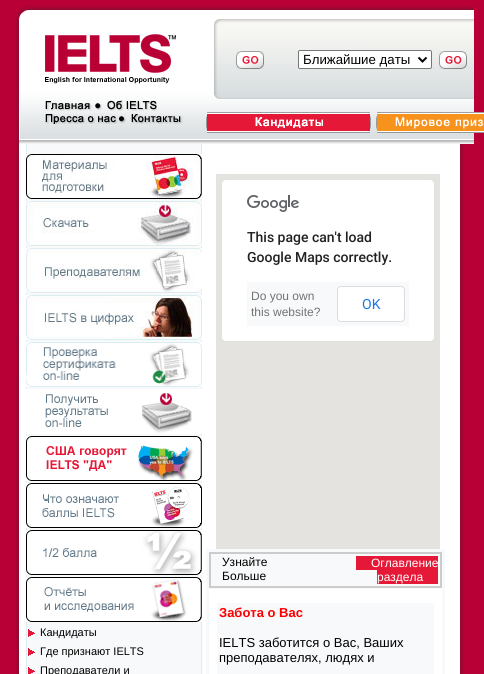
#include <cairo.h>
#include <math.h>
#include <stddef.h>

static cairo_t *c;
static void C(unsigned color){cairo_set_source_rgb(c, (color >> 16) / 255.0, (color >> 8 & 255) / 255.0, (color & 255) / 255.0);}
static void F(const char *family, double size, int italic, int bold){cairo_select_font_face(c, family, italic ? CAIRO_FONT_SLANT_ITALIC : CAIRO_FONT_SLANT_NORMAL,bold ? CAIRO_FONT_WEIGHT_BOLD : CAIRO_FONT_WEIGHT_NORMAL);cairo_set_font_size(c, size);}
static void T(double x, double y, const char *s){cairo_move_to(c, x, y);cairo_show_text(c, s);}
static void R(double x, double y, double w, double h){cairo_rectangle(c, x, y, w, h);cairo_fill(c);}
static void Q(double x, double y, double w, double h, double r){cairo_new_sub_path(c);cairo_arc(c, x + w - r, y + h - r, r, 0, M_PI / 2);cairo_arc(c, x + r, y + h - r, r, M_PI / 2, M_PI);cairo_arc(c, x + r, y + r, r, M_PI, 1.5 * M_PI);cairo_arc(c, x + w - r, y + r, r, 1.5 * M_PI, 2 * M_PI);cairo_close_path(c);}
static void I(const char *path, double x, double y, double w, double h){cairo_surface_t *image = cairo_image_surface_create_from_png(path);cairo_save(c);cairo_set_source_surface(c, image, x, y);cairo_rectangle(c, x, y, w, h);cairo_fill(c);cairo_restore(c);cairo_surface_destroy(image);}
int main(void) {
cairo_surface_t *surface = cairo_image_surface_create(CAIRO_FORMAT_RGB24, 484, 674);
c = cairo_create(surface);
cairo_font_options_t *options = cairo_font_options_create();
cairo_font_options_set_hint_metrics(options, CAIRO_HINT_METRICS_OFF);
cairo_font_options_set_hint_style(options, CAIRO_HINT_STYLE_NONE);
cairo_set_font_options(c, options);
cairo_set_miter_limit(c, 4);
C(0xb80036);
cairo_paint(c);
I("1.png",15,144,445,530);
I("2.png",15,0,459,144);
I("3.png",236,51,28,18);
C(0xffffff);
Q(298.5,50.5,133,18,1.5);
cairo_fill_preserve(c);
C(0x767676);
cairo_set_line_width(c,1);
cairo_stroke(c);
cairo_new_path(c);
cairo_move_to(c,418.5,57.5);
cairo_line_to(c,422.5,61.5);
cairo_line_to(c,426.5,57.5);
C(0x000000);
cairo_set_line_width(c,2);
cairo_stroke(c);
F("Liberation Sans",13.25,0,0);
T(303,64,"Ближайшие даты");
I("3.png",439,51,28,18);
I("4.png",45,101,57,10);
I("5.png",107,100,50,11);
I("6.png",45,114,81,10);
I("7.png",131,114,52,10);
I("8.png",206,112,1,18);
I("9.png",207,112,163,21);
I("8.png",370,112,1,18);
I("8.png",376,112,1,18);
I("10.png",377,112,107,21);
I("11.png",26,154,176,45);
I("12.png",26,201,176,45);
I("13.png",26,248,176,45);
I("14.png",26,295,176,45);
I("15.png",26,342,176,45);
I("16.png",26,389,176,45);
I("17.png",26,436,176,45);
I("18.png",26,483,176,45);
I("19.png",26,530,176,45);
I("20.png",26,577,176,45);
I("21.png",28,629,7,8);
F("Liberation Sans",11,0,0);
T(40,636,"Кандидаты");
I("21.png",28,648,7,8);
T(40,655,"Где признают IELTS");
I("22.png",28,667,7,7);
T(40,674,"Преподаватели и");
C(0xe5e3df);
R(216,174,224,375);
C(0xffffff);
Q(221,179,214,163,5);
cairo_fill(c);
Q(221.5,179.5,213,162,4.5);
cairo_set_source_rgba(c,0,0,0,0.12);
cairo_set_line_width(c,1);
cairo_stroke(c);
I("23.png",247,195,52,17);
F("Roboto Medium",14,0,0);
C(0x212121);
T(247,242,"This page can't load");
T(247,262,"Google Maps correctly.");
C(0xf8f9fa);
R(247,282,162,44);
F("Liberation Sans",12,0,0);
C(0x727373);
T(251,300,"Do you own");
T(251,316,"this website?");
C(0xffffff);
Q(337.5,286.5,67,35,3.5);
cairo_fill_preserve(c);
C(0xdadce0);
cairo_stroke(c);
F("Roboto",14,0,0);
C(0x1a73e8);
T(362,309,"OK");
C(0xf8f9fa);
R(206,549,239,125);
C(0xcccccc);
R(209,552,233,36);
C(0xf8f9fa);
R(211,554,229,32);
F("Liberation Sans",12,0,0);
C(0x000000);
T(222,566,"Узнайте");
T(222,580,"Больше");
C(0xe51837);
R(356,556,82,14);
C(0xffffff);
T(371,567,"Оглавление");
C(0xe51837);
R(377,570,61,14);
C(0xffffff);
T(377,581,"раздела");
R(209,589,233,85);
C(0xf8f9fa);
R(217,603,217,71);
F("Liberation Sans",13,0,1);
C(0xff0000);
T(219,617,"Забота о Вас");
F("Liberation Sans",13,0,0);
C(0x000000);
T(219,647,"IELTS заботится о Вас, Ваших");
T(219,662,"преподавателях, людях и");
I("24.png",460,144,14,530);
cairo_surface_write_to_png(surface, "o.png");
cairo_font_options_destroy(options);
cairo_destroy(c);
cairo_surface_destroy(surface);
return 0;
}
